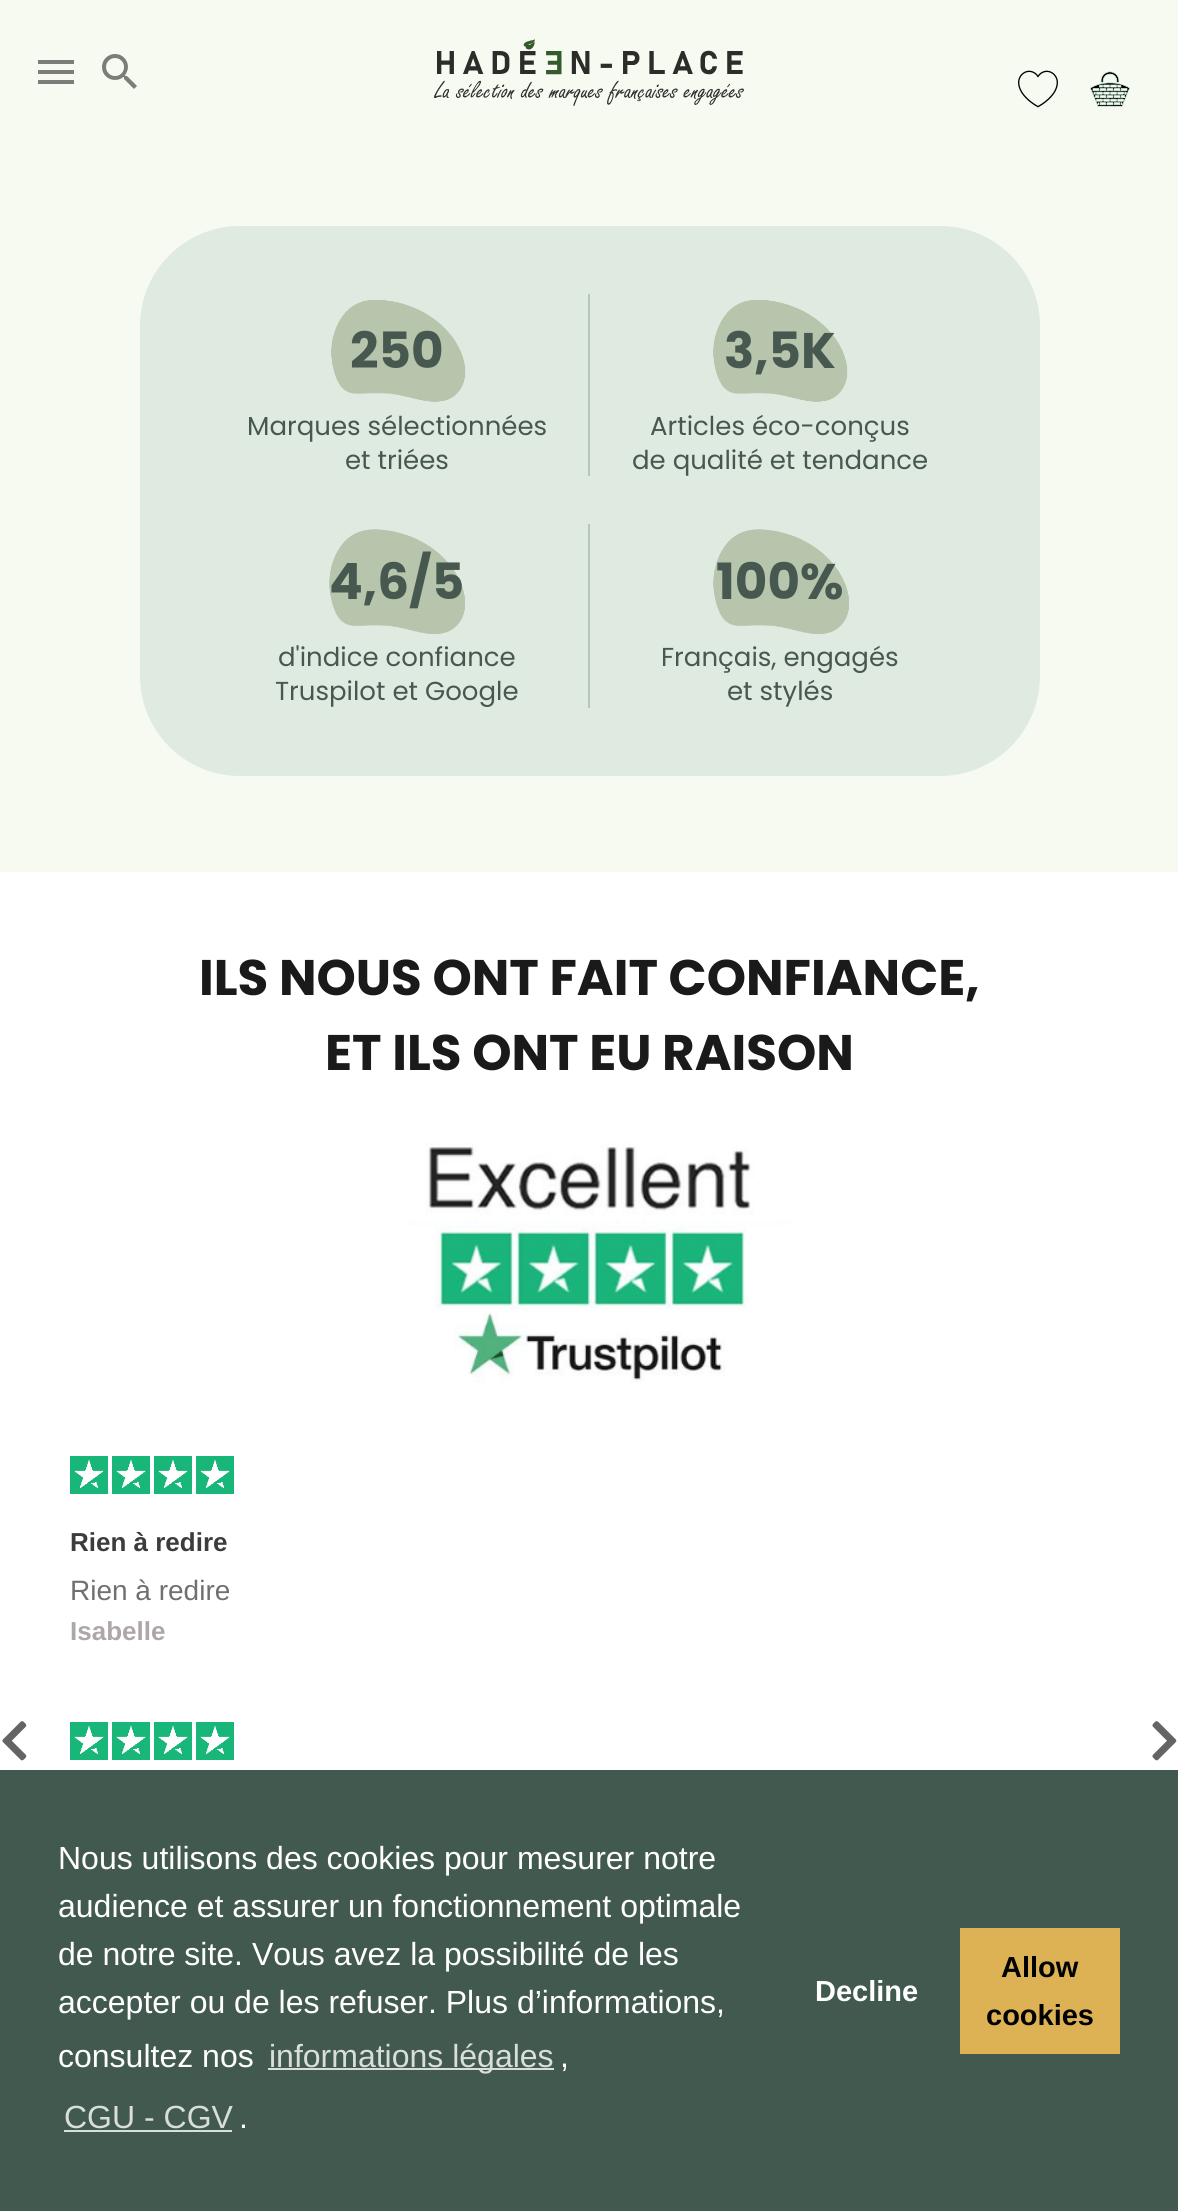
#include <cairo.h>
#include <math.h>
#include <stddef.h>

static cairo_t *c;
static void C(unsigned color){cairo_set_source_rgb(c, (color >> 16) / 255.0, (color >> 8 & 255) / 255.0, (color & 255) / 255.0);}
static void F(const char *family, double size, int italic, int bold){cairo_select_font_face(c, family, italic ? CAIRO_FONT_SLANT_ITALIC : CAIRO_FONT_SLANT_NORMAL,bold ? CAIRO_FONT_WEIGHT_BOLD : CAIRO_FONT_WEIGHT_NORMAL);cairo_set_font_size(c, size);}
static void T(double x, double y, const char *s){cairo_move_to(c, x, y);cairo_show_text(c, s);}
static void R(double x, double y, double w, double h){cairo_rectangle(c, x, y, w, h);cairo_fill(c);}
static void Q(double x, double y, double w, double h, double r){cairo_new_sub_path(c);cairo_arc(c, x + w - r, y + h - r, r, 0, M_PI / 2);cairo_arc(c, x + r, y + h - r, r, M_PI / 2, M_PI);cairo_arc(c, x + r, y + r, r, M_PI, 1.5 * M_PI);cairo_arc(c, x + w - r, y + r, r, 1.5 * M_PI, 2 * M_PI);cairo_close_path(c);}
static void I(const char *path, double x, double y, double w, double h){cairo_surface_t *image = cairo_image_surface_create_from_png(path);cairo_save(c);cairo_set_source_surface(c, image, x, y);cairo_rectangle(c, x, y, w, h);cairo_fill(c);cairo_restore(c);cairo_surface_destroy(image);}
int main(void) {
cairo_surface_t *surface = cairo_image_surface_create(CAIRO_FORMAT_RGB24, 1178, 2211);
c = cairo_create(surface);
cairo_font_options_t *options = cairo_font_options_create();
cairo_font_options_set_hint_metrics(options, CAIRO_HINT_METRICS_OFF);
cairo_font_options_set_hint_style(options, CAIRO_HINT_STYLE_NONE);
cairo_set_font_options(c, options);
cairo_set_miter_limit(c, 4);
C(0xf6faf0);
cairo_paint(c);
C(0x7b7d78);
cairo_new_path(c);
cairo_move_to(c,38,60);
cairo_line_to(c,74,60);
cairo_line_to(c,74,64);
cairo_line_to(c,38,64);
cairo_close_path(c);
cairo_move_to(c,38,74);
cairo_line_to(c,38,70);
cairo_line_to(c,74,70);
cairo_line_to(c,74,74);
cairo_close_path(c);
cairo_move_to(c,38,84);
cairo_line_to(c,38,80);
cairo_line_to(c,74,80);
cairo_line_to(c,74,84);
cairo_close_path(c);
cairo_fill(c);
I("1.png",102,54,35,35);
I("2.png",434,38,310,68);
I("3.png",1018,70,40,38);
I("4.png",1090,71,40,36);
C(0xdfebe0);
Q(140,226,900,550,100);
cairo_fill(c);
C(0xb8c6bc);
R(588,294,2,182);
I("5.png",331,300,135,102);
F("Poppins",50,0,1);
C(0x475850);
T(350,368,"250");
F("Poppins",26,0,0);
T(247,435,"Marques sélectionnées");
T(345,469,"et triées");
I("5.png",713,300,135,102);
F("Poppins",50,0,1);
T(724,368,"3,5K");
F("Poppins",26,0,0);
T(650,435,"Articles éco-conçus");
T(632,469,"de qualité et tendance");
C(0xb8c6bc);
R(588,524,2,184);
I("6.png",329,529,136,105);
F("Poppins",50,0,1);
C(0x475850);
T(329,599,"4,6/5");
F("Poppins",26,0,0);
T(278,666,"d'indice confiance");
T(275,700,"Truspilot et Google");
I("7.png",713,529,136,105);
F("Poppins",50,0,1);
T(716,599,"100%");
F("Poppins",26,0,0);
T(661,666,"Français, engagés");
T(727,700,"et stylés");
C(0xffffff);
R(0,872,1178,898);
F("Poppins",50,0,1);
C(0x1a1a1a);
T(199,995,"ILS NOUS ONT FAIT CONFIANCE,");
T(325,1070,"ET ILS ONT EU RAISON");
I("8.png",407,1143,384,240);
C(0x19b679);
R(70,1456,38,38);
I("9.png",74,1460,30,28);
R(112,1456,38,38);
I("9.png",116,1460,30,28);
R(154,1456,38,38);
I("9.png",158,1460,30,28);
R(196,1456,38,38);
I("9.png",200,1460,30,28);
F("Liberation Sans",26,0,1);
C(0x3c3c3c);
T(70,1551,"Rien à redire");
F("Liberation Sans",28,0,0);
C(0x707070);
T(70,1600,"Rien à redire");
F("Liberation Sans",26,0,1);
C(0xada7a7);
T(70,1640,"Isabelle");
C(0x19b679);
R(70,1722,38,38);
I("9.png",74,1726,30,28);
R(112,1722,38,38);
I("9.png",116,1726,30,28);
R(154,1722,38,38);
I("9.png",158,1726,30,28);
R(196,1722,38,38);
I("9.png",200,1726,30,28);
I("10.png",2,1721,25,40);
I("11.png",1152,1721,25,40);
C(0x42594f);
R(0,1770,1178,441);
F("Liberation Sans",32,0,0);
C(0xffffff);
T(58,1869,"Nous utilisons des cookies pour mesurer notre");
T(58,1917,"audience et assurer un fonctionnement optimale");
T(58,1965,"de notre site. Vous avez la possibilité de les");
T(58,2013,"accepter ou de les refuser. Plus d’informations,");
T(58,2067,"consultez nos");
C(0xd9dedc);
R(268,2068,286,2);
T(269,2067,"informations légales");
C(0xffffff);
T(560,2067,",");
C(0xd9dedc);
T(64,2128,"CGU - CGV");
R(64,2130,168,2);
C(0xffffff);
T(239,2128,".");
F("Liberation Sans",29,0,1);
T(815,2001,"Decline");
C(0xddb254);
R(960,1928,160,126);
C(0x000000);
T(1001,1977,"Allow");
T(986,2025,"cookies");
cairo_surface_write_to_png(surface, "o.png");
cairo_font_options_destroy(options);
cairo_destroy(c);
cairo_surface_destroy(surface);
return 0;
}
